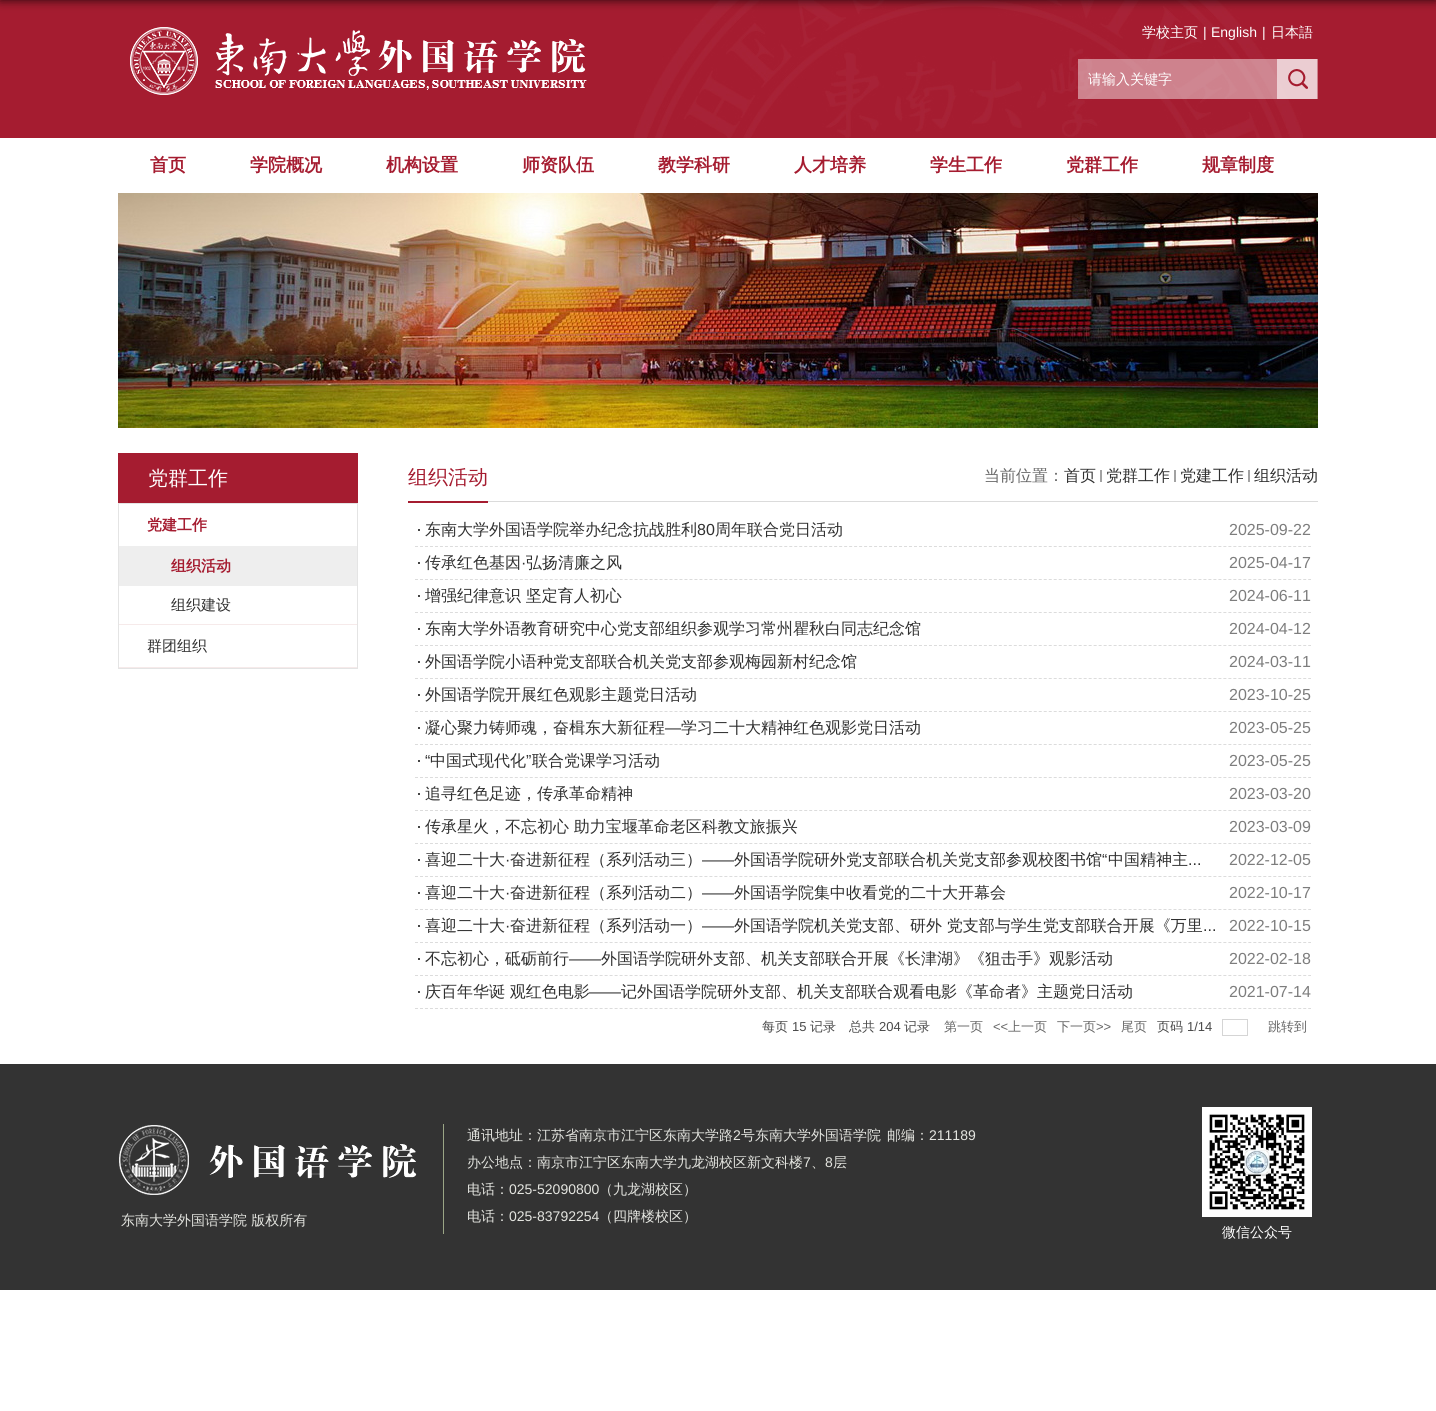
#include <cairo.h>
#include <math.h>
#include <stddef.h>

static cairo_t *c;
static void C(unsigned color){cairo_set_source_rgb(c, (color >> 16) / 255.0, (color >> 8 & 255) / 255.0, (color & 255) / 255.0);}
static void F(const char *family, double size, int italic, int bold){cairo_select_font_face(c, family, italic ? CAIRO_FONT_SLANT_ITALIC : CAIRO_FONT_SLANT_NORMAL,bold ? CAIRO_FONT_WEIGHT_BOLD : CAIRO_FONT_WEIGHT_NORMAL);cairo_set_font_size(c, size);}
static void T(double x, double y, const char *s){cairo_move_to(c, x, y);cairo_show_text(c, s);}
static void R(double x, double y, double w, double h){cairo_rectangle(c, x, y, w, h);cairo_fill(c);}
static void Q(double x, double y, double w, double h, double r){cairo_new_sub_path(c);cairo_arc(c, x + w - r, y + h - r, r, 0, M_PI / 2);cairo_arc(c, x + r, y + h - r, r, M_PI / 2, M_PI);cairo_arc(c, x + r, y + r, r, M_PI, 1.5 * M_PI);cairo_arc(c, x + w - r, y + r, r, 1.5 * M_PI, 2 * M_PI);cairo_close_path(c);}
static void S(double x, double y, double w, double h, double r, double blur, double alpha){cairo_push_group_with_content(c, CAIRO_CONTENT_ALPHA);cairo_set_operator(c, CAIRO_OPERATOR_SOURCE);for (int i = 15; i >= -15 && fmin(w, h) + blur * i / 3 > 0; i -= 2) {double e = blur * i / 6;cairo_set_source_rgba(c, 0, 0, 0, alpha * erfc((i - 1) / 8.5) / 2);Q(x - e, y - e, w + 2 * e, h + 2 * e, fmax(0, fmin(r + e + blur * .6, fmin(w, h) / 2 + e)));cairo_fill(c);}cairo_pattern_t *soft = cairo_pop_group(c);cairo_mask(c, soft);cairo_pattern_destroy(soft);}
static void I(const char *path, double x, double y, double w, double h){cairo_surface_t *image = cairo_image_surface_create_from_png(path);cairo_save(c);cairo_set_source_surface(c, image, x, y);cairo_rectangle(c, x, y, w, h);cairo_fill(c);cairo_restore(c);cairo_surface_destroy(image);}
int main(void) {
cairo_surface_t *surface = cairo_image_surface_create(CAIRO_FORMAT_RGB24, 1436, 1411);
c = cairo_create(surface);
cairo_font_options_t *options = cairo_font_options_create();
cairo_font_options_set_hint_metrics(options, CAIRO_HINT_METRICS_OFF);
cairo_font_options_set_hint_style(options, CAIRO_HINT_STYLE_NONE);
cairo_set_font_options(c, options);
cairo_set_miter_limit(c, 4);
C(0xffffff);
cairo_paint(c);
C(0xa51c30);
R(0,0,1436,138);
I("1.png",634,0,669,138);
C(0x000000);
S(0,-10,1436,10,0,5,.8);
I("2.png",130,27,457,68);
F("WenQuanYi Zen Hei Medium",14,0,0);
C(0xffffff);
T(1142,37,"学校主页");
F("Liberation Sans",14,0,0);
T(1203,37,"|");
T(1211,37,"English");
T(1262,37,"|");
F("WenQuanYi Zen Hei Medium",14,0,0);
T(1271,37,"日本語");
I("3.png",1078,59,240,40);
T(1088,84,"请输入关键字");
F("WenQuanYi Zen Hei",18,0,1);
C(0xa51c30);
T(150,171,"首页");
T(250,171,"学院概况");
T(386,171,"机构设置");
T(522,171,"师资队伍");
T(658,171,"教学科研");
T(794,171,"人才培养");
T(930,171,"学生工作");
T(1066,171,"党群工作");
T(1202,171,"规章制度");
I("4.png",118,193,1200,235);
R(118,453,240,50);
F("WenQuanYi Zen Hei Medium",20,0,0);
C(0xffffff);
T(148,485,"党群工作");
cairo_rectangle(c,118.5,503.5,239,165);
C(0xe4e4e4);
cairo_set_line_width(c,1);
cairo_stroke(c);
F("WenQuanYi Zen Hei",15,0,1);
C(0xa51c30);
T(147,530,"党建工作");
C(0xeeeeee);
R(119,546,238,40);
C(0xa51c30);
T(171,571,"组织活动");
C(0xf6eaea);
R(119,624,238,1);
F("WenQuanYi Zen Hei Medium",15,0,0);
C(0x2f2f2f);
T(171,610,"组织建设");
C(0xf6eaea);
R(119,667,238,1);
C(0x2f2f2f);
T(147,651,"群团组织");
C(0xdbdbdb);
R(488,501,830,1);
C(0xa51c30);
R(408,501,80,2);
F("WenQuanYi Zen Hei Medium",20,0,0);
T(408,484,"组织活动");
F("WenQuanYi Zen Hei Medium",16,0,0);
C(0x666666);
T(984,481,"当前位置：");
C(0x2f2f2f);
T(1064,481,"首页");
C(0xa2a2a2);
R(1100,470,2,12);
C(0x2f2f2f);
T(1106,481,"党群工作");
C(0xa2a2a2);
R(1174,470,2,12);
C(0x2f2f2f);
T(1180,481,"党建工作");
C(0xa2a2a2);
R(1248,470,2,12);
C(0x2f2f2f);
T(1254,481,"组织活动");
cairo_new_path(c);
cairo_move_to(c,415,546.5);
cairo_line_to(c,1311,546.5);
C(0xdcdcdc);
cairo_set_dash(c,(double[]){3,1.99},2,0);
cairo_stroke(c);
C(0x454545);
R(418,529,2,2);
C(0x2f2f2f);
T(425,535,"东南大学外国语学院举办纪念抗战胜利");
F("Liberation Sans",16,0,0);
T(697,535,"80");
F("WenQuanYi Zen Hei Medium",16,0,0);
T(715,535,"周年联合党日活动");
F("Liberation Sans",16,0,0);
C(0x7d7d7d);
T(1229,535,"2025-09-22");
cairo_new_path(c);
cairo_move_to(c,415,579.5);
cairo_line_to(c,1311,579.5);
C(0xdcdcdc);
cairo_stroke(c);
C(0x454545);
R(418,562,2,2);
F("WenQuanYi Zen Hei Medium",16,0,0);
C(0x2f2f2f);
T(425,568,"传承红色基因");
F("Liberation Sans",16,0,0);
T(521,568,"·");
F("WenQuanYi Zen Hei Medium",16,0,0);
T(526,568,"弘扬清廉之风");
F("Liberation Sans",16,0,0);
C(0x7d7d7d);
T(1229,568,"2025-04-17");
cairo_new_path(c);
cairo_move_to(c,415,612.5);
cairo_line_to(c,1311,612.5);
C(0xdcdcdc);
cairo_stroke(c);
C(0x454545);
R(418,595,2,2);
F("WenQuanYi Zen Hei Medium",16,0,0);
C(0x2f2f2f);
T(425,601,"增强纪律意识 坚定育人初心");
F("Liberation Sans",16,0,0);
C(0x7d7d7d);
T(1229,601,"2024-06-11");
cairo_new_path(c);
cairo_move_to(c,415,645.5);
cairo_line_to(c,1311,645.5);
C(0xdcdcdc);
cairo_stroke(c);
C(0x454545);
R(418,628,2,2);
F("WenQuanYi Zen Hei Medium",16,0,0);
C(0x2f2f2f);
T(425,634,"东南大学外语教育研究中心党支部组织参观学习常州瞿秋白同志纪念馆");
F("Liberation Sans",16,0,0);
C(0x7d7d7d);
T(1229,634,"2024-04-12");
cairo_new_path(c);
cairo_move_to(c,415,678.5);
cairo_line_to(c,1311,678.5);
C(0xdcdcdc);
cairo_stroke(c);
C(0x454545);
R(418,661,2,2);
F("WenQuanYi Zen Hei Medium",16,0,0);
C(0x2f2f2f);
T(425,667,"外国语学院小语种党支部联合机关党支部参观梅园新村纪念馆");
F("Liberation Sans",16,0,0);
C(0x7d7d7d);
T(1229,667,"2024-03-11");
cairo_new_path(c);
cairo_move_to(c,415,711.5);
cairo_line_to(c,1311,711.5);
C(0xdcdcdc);
cairo_stroke(c);
C(0x454545);
R(418,694,2,2);
F("WenQuanYi Zen Hei Medium",16,0,0);
C(0x2f2f2f);
T(425,700,"外国语学院开展红色观影主题党日活动");
F("Liberation Sans",16,0,0);
C(0x7d7d7d);
T(1229,700,"2023-10-25");
cairo_new_path(c);
cairo_move_to(c,415,744.5);
cairo_line_to(c,1311,744.5);
C(0xdcdcdc);
cairo_stroke(c);
C(0x454545);
R(418,727,2,2);
F("WenQuanYi Zen Hei Medium",16,0,0);
C(0x2f2f2f);
T(425,733,"凝心聚力铸师魂，奋楫东大新征程");
F("Liberation Sans",16,0,0);
T(665,733,"—");
F("WenQuanYi Zen Hei Medium",16,0,0);
T(681,733,"学习二十大精神红色观影党日活动");
F("Liberation Sans",16,0,0);
C(0x7d7d7d);
T(1229,733,"2023-05-25");
cairo_new_path(c);
cairo_move_to(c,415,777.5);
cairo_line_to(c,1311,777.5);
C(0xdcdcdc);
cairo_stroke(c);
C(0x454545);
R(418,760,2,2);
C(0x2f2f2f);
T(425,766,"“");
F("WenQuanYi Zen Hei Medium",16,0,0);
T(430,766,"中国式现代化");
F("Liberation Sans",16,0,0);
T(526,766,"”");
F("WenQuanYi Zen Hei Medium",16,0,0);
T(532,766,"联合党课学习活动");
F("Liberation Sans",16,0,0);
C(0x7d7d7d);
T(1229,766,"2023-05-25");
cairo_new_path(c);
cairo_move_to(c,415,810.5);
cairo_line_to(c,1311,810.5);
C(0xdcdcdc);
cairo_stroke(c);
C(0x454545);
R(418,793,2,2);
F("WenQuanYi Zen Hei Medium",16,0,0);
C(0x2f2f2f);
T(425,799,"追寻红色足迹，传承革命精神");
F("Liberation Sans",16,0,0);
C(0x7d7d7d);
T(1229,799,"2023-03-20");
cairo_new_path(c);
cairo_move_to(c,415,843.5);
cairo_line_to(c,1311,843.5);
C(0xdcdcdc);
cairo_stroke(c);
C(0x454545);
R(418,826,2,2);
F("WenQuanYi Zen Hei Medium",16,0,0);
C(0x2f2f2f);
T(425,832,"传承星火，不忘初心 助力宝堰革命老区科教文旅振兴");
F("Liberation Sans",16,0,0);
C(0x7d7d7d);
T(1229,832,"2023-03-09");
cairo_new_path(c);
cairo_move_to(c,415,876.5);
cairo_line_to(c,1311,876.5);
C(0xdcdcdc);
cairo_stroke(c);
C(0x454545);
R(418,859,2,2);
F("WenQuanYi Zen Hei Medium",16,0,0);
C(0x2f2f2f);
T(425,865,"喜迎二十大");
T(510,865,"奋进新征程（系列活动三）");
F("Liberation Sans",16,0,0);
T(702,865,"——");
F("WenQuanYi Zen Hei Medium",16,0,0);
T(734,865,"外国语学院研外党支部联合机关党支部参观校图书馆");
F("Liberation Sans",16,0,0);
T(1102,865,"“");
F("WenQuanYi Zen Hei Medium",16,0,0);
T(1108,865,"中国精神主");
F("Liberation Sans",16,0,0);
T(505,865,"·");
T(1188,865,"...");
C(0x7d7d7d);
T(1229,865,"2022-12-05");
cairo_new_path(c);
cairo_move_to(c,415,909.5);
cairo_line_to(c,1311,909.5);
C(0xdcdcdc);
cairo_stroke(c);
C(0x454545);
R(418,892,2,2);
F("WenQuanYi Zen Hei Medium",16,0,0);
C(0x2f2f2f);
T(425,898,"喜迎二十大");
F("Liberation Sans",16,0,0);
T(505,898,"·");
F("WenQuanYi Zen Hei Medium",16,0,0);
T(510,898,"奋进新征程（系列活动二）");
F("Liberation Sans",16,0,0);
T(702,898,"——");
F("WenQuanYi Zen Hei Medium",16,0,0);
T(734,898,"外国语学院集中收看党的二十大开幕会");
F("Liberation Sans",16,0,0);
C(0x7d7d7d);
T(1229,898,"2022-10-17");
cairo_new_path(c);
cairo_move_to(c,415,942.5);
cairo_line_to(c,1311,942.5);
C(0xdcdcdc);
cairo_stroke(c);
C(0x454545);
R(418,925,2,2);
F("WenQuanYi Zen Hei Medium",16,0,0);
C(0x2f2f2f);
T(425,931,"喜迎二十大");
F("Liberation Sans",16,0,0);
T(505,931,"·");
F("WenQuanYi Zen Hei Medium",16,0,0);
T(510,931,"奋进新征程（系列活动一）");
F("Liberation Sans",16,0,0);
T(702,931,"——");
F("WenQuanYi Zen Hei Medium",16,0,0);
T(734,931,"外国语学院机关党支部、研外 党支部与学生党支部联合开展《万里");
F("Liberation Sans",16,0,0);
T(1203,931,"...");
C(0x7d7d7d);
T(1229,931,"2022-10-15");
cairo_new_path(c);
cairo_move_to(c,415,975.5);
cairo_line_to(c,1311,975.5);
C(0xdcdcdc);
cairo_stroke(c);
C(0x454545);
R(418,958,2,2);
F("WenQuanYi Zen Hei Medium",16,0,0);
C(0x2f2f2f);
T(425,964,"不忘初心，砥砺前行");
F("Liberation Sans",16,0,0);
T(569,964,"——");
F("WenQuanYi Zen Hei Medium",16,0,0);
T(601,964,"外国语学院研外支部、机关支部联合开展《长津湖》《狙击手》观影活动");
F("Liberation Sans",16,0,0);
C(0x7d7d7d);
T(1229,964,"2022-02-18");
cairo_new_path(c);
cairo_move_to(c,415,1008.5);
cairo_line_to(c,1311,1008.5);
C(0xdcdcdc);
cairo_stroke(c);
C(0x454545);
R(418,991,2,2);
F("WenQuanYi Zen Hei Medium",16,0,0);
C(0x2f2f2f);
T(425,997,"庆百年华诞 观红色电影");
F("Liberation Sans",16,0,0);
T(589,997,"——");
F("WenQuanYi Zen Hei Medium",16,0,0);
T(621,997,"记外国语学院研外支部、机关支部联合观看电影《革命者》主题党日活动");
F("Liberation Sans",16,0,0);
C(0x7d7d7d);
T(1229,997,"2021-07-14");
F("WenQuanYi Zen Hei Medium",13,0,0);
C(0x494949);
T(762,1031,"每页");
F("Liberation Sans",13,0,0);
T(792,1031,"15");
F("WenQuanYi Zen Hei Medium",13,0,0);
T(810,1031,"记录");
T(849,1031,"总共");
F("Liberation Sans",13,0,0);
T(879,1031,"204");
F("WenQuanYi Zen Hei Medium",13,0,0);
T(904,1031,"记录");
C(0x666666);
T(944,1031,"第一页");
F("Liberation Sans",13,0,0);
T(993,1031,"<<");
F("WenQuanYi Zen Hei Medium",13,0,0);
T(1008,1031,"上一页");
T(1057,1031,"下一页");
F("Liberation Sans",13,0,0);
T(1096,1031,">>");
F("WenQuanYi Zen Hei Medium",13,0,0);
T(1121,1031,"尾页");
C(0x494949);
T(1157,1031,"页码");
F("Liberation Sans",13,0,0);
T(1187,1031,"1/14");
cairo_rectangle(c,1222.5,1019.5,25,16);
C(0xd5d5d5);
cairo_set_dash(c,NULL,0,0);
cairo_stroke(c);
F("WenQuanYi Zen Hei Medium",13,0,0);
C(0x666666);
T(1268,1031,"跳转到");
C(0x333333);
R(0,1064,1436,226);
C(0x9ba686);
R(443,1124,1,110);
I("5.png",119,1125,298,70);
F("WenQuanYi Zen Hei Medium",14,0,0);
C(0xe4e5e0);
T(121,1225,"东南大学外国语学院 版权所有");
T(467,1140,"通讯地址：江苏省南京市江宁区东南大学路");
F("Liberation Sans",14,0,0);
T(733,1140,"2");
F("WenQuanYi Zen Hei Medium",14,0,0);
T(741,1140,"号东南大学外国语学院");
T(887,1140,"邮编：");
F("Liberation Sans",14,0,0);
T(929,1140,"211189");
F("WenQuanYi Zen Hei Medium",14,0,0);
T(467,1167,"办公地点：南京市江宁区东南大学九龙湖校区新文科楼");
F("Liberation Sans",14,0,0);
T(803,1167,"7");
F("WenQuanYi Zen Hei Medium",14,0,0);
T(811,1167,"、");
F("Liberation Sans",14,0,0);
T(825,1167,"8");
F("WenQuanYi Zen Hei Medium",14,0,0);
T(833,1167,"层");
T(467,1194,"电话：");
F("Liberation Sans",14,0,0);
T(509,1194,"025-52090800");
F("WenQuanYi Zen Hei Medium",14,0,0);
T(599,1194,"（九龙湖校区）");
T(467,1221,"电话：");
F("Liberation Sans",14,0,0);
T(509,1221,"025-83792254");
F("WenQuanYi Zen Hei Medium",14,0,0);
T(599,1221,"（四牌楼校区）");
I("6.png",1202,1107,110,110);
C(0xffffff);
T(1222,1237,"微信公众号");
cairo_surface_write_to_png(surface, "o.png");
cairo_font_options_destroy(options);
cairo_destroy(c);
cairo_surface_destroy(surface);
return 0;
}
